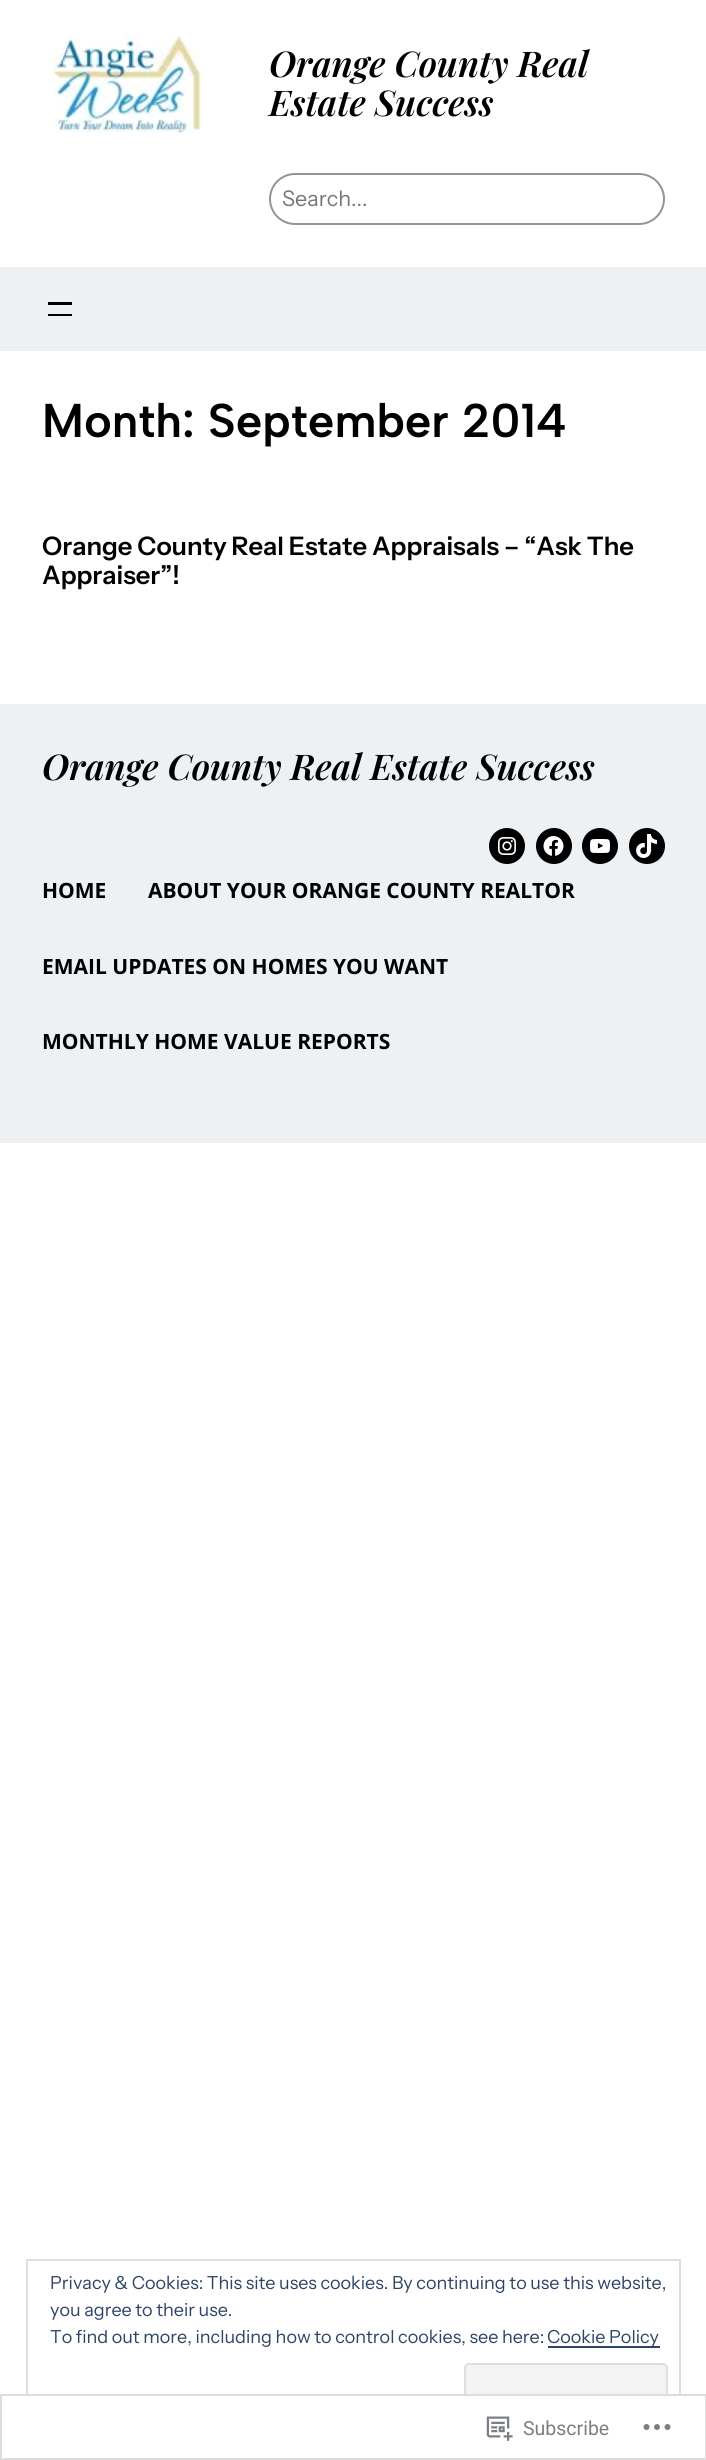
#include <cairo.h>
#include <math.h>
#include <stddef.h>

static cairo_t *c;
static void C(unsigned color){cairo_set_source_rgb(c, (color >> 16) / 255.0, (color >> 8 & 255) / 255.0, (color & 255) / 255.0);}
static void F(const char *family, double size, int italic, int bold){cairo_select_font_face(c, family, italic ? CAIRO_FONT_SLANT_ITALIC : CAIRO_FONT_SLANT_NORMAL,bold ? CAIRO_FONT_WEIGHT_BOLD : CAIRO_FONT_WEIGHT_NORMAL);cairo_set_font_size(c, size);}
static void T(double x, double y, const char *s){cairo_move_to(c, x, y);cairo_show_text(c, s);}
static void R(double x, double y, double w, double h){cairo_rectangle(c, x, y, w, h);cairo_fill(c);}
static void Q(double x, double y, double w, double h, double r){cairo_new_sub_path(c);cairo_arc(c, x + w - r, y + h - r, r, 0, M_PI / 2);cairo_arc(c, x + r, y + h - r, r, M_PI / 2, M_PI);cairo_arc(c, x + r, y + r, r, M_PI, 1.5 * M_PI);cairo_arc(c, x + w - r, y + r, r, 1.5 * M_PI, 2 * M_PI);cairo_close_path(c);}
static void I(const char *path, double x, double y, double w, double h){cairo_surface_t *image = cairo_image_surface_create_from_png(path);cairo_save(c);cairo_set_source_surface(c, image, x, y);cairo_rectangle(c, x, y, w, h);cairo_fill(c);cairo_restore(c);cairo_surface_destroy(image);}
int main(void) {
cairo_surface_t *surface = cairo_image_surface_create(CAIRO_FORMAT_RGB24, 706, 2460);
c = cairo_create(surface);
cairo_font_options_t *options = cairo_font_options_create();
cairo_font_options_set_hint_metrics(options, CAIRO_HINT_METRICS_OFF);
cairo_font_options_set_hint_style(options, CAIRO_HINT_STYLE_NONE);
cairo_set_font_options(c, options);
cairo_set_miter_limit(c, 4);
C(0xffffff);
cairo_paint(c);
I("1.png",53,35,149,98);
F("Playfair Display SemiBold",35.5,1,0);
C(0x000000);
T(269,77,"Orange County Real");
T(269,116,"Estate Success");
Q(270,174,394,50,25);
C(0x949494);
cairo_stroke(c);
F("Instrument Sans",21.5,0,0);
C(0x757575);
T(282,206,"Search...");
C(0xedf1f4);
R(0,267,706,84);
C(0x000000);
R(48,302,24,3);
R(48,314,24,2);
F("Albert Sans SemiBold",47.4,0,0);
T(42,437,"Month: September 2014");
F("Instrument Sans SemiBold",25.5,0,0);
T(42,555,"Orange County Real Estate Appraisals – “Ask The");
T(42,584,"Appraiser”!");
C(0xedf1f4);
R(0,704,706,439);
F("Playfair Display SemiBold",35.5,1,0);
C(0x000000);
T(42,780,"Orange County Real Estate Success");
cairo_new_path(c);
cairo_arc(c,507,846,18,0,2 * M_PI);
cairo_fill(c);
I("2.png",498,837,18,18);
cairo_arc(c,554,846,18,0,2 * M_PI);
cairo_fill(c);
I("3.png",543,836,21,20);
cairo_arc(c,600,846,18,0,2 * M_PI);
cairo_fill(c);
I("4.png",590,839,20,14);
cairo_arc(c,647,846,18,0,2 * M_PI);
cairo_fill(c);
I("5.png",636,834,21,24);
F("Open Sans",21,0,1);
T(42,898,"HOME");
T(148,898,"ABOUT YOUR ORANGE COUNTY REALTOR");
T(42,974,"EMAIL UPDATES ON HOMES YOU WANT");
T(42,1049,"MONTHLY HOME VALUE REPORTS");
cairo_rectangle(c,27,2260,653,174);
C(0xdedede);
cairo_stroke(c);
F("Instrument Sans",18,0,0);
C(0x2e4467);
T(50,2289,"Privacy & Cookies: This site uses cookies. By continuing to use this website,");
T(50,2316,"you agree to their use.");
T(50,2343,"To find out more, including how to control cookies, see here:");
R(548,2346,112,2);
T(547,2343,"Cookie Policy");
C(0xf3f3f3);
Q(465,2364,202,56,4);
cairo_fill_preserve(c);
C(0xdedede);
cairo_stroke(c);
cairo_set_source_rgba(c,1,1,1,0.98);
R(26,2394,655,41);
cairo_rectangle(c,1,2395,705,64);
cairo_set_source_rgba(c,0.863,0.863,0.871,0.98);
cairo_stroke(c);
I("6.png",486,2416,27,25);
F("Roboto",19.5,0,0);
C(0x7b7f84);
T(523,2435,"Subscribe");
I("7.png",643,2424,28,6);
cairo_surface_write_to_png(surface, "o.png");
cairo_font_options_destroy(options);
cairo_destroy(c);
cairo_surface_destroy(surface);
return 0;
}
